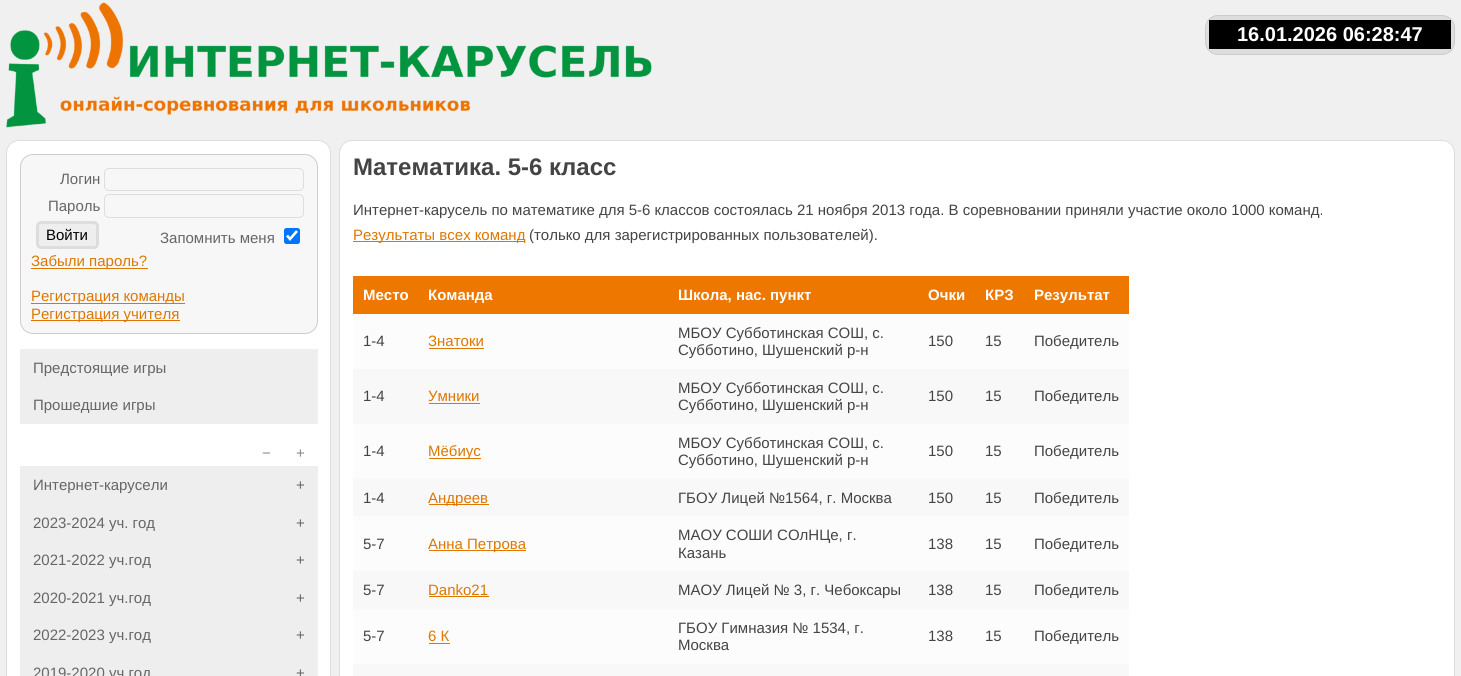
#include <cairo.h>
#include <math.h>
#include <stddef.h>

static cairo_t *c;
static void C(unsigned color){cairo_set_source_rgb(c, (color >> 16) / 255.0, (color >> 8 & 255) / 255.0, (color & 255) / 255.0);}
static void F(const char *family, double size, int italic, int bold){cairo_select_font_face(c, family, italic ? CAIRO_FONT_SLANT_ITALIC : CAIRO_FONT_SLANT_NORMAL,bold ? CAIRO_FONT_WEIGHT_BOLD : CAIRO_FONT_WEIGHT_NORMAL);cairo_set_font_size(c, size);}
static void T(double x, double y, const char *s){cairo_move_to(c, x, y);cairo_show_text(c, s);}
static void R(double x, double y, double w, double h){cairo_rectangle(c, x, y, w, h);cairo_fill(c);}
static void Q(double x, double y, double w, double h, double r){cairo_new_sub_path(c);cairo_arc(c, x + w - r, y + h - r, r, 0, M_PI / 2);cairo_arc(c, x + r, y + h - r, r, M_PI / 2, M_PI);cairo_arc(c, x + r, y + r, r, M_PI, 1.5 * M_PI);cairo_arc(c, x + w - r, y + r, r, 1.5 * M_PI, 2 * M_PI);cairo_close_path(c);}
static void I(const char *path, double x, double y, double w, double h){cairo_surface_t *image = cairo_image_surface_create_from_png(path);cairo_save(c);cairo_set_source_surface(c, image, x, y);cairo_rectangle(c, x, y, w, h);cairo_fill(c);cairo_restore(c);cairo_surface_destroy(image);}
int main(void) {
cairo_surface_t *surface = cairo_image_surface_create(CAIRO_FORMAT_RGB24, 1461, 676);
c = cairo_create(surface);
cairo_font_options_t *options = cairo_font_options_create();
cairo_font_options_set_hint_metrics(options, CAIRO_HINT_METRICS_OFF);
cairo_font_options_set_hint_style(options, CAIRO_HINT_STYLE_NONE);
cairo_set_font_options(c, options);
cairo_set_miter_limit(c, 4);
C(0xf0f0f0);
cairo_paint(c);
I("1.png",6,2,646,126);
C(0xdddddd);
Q(1205.5,15.5,249,39,12.5);
cairo_fill_preserve(c);
C(0xcccccc);
cairo_set_line_width(c,1);
cairo_stroke(c);
C(0x000000);
R(1209,20,242,29);
F("Liberation Sans",20,0,1);
C(0xffffff);
T(1237,41,"16.01.2026 06:28:47");
Q(6.5,140.5,324,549,12.5);
cairo_fill_preserve(c);
C(0xdddddd);
cairo_stroke(c);
C(0xf7f7f7);
Q(20.5,154.5,297,179,12.5);
cairo_fill_preserve(c);
C(0xcccccc);
cairo_stroke(c);
F("Liberation Sans",15,0,0);
C(0x666666);
T(60,184,"Логин");
Q(104.5,168.5,199,22,4.5);
C(0xdddddd);
cairo_stroke(c);
C(0x666666);
T(48,211,"Пароль");
Q(104.5,194.5,199,23,4.5);
C(0xdddddd);
cairo_stroke(c);
C(0xeeeeee);
Q(37.5,222.5,60,25,3.5);
cairo_fill_preserve(c);
C(0xdddddd);
cairo_set_line_width(c,3);
cairo_stroke(c);
C(0x000000);
T(46,240,"Войти");
C(0x666666);
T(160,243,"Запомнить меня");
C(0x0075ff);
Q(284,228,16,16,2.5);
cairo_fill(c);
cairo_new_path(c);
cairo_move_to(c,287,235.5);
cairo_line_to(c,290,239);
cairo_line_to(c,297,231);
C(0xffffff);
cairo_set_line_width(c,2.6);
cairo_stroke(c);
C(0xdd7700);
R(31,268,117,1);
T(31,266,"Забыли пароль?");
R(31,303,154,1);
T(31,301,"Регистрация команды");
R(31,320,149,1);
T(31,319,"Регистрация учителя");
C(0xeeeeee);
R(20,349,298,75);
C(0x666666);
T(33,373,"Предстоящие игры");
T(33,410,"Прошедшие игры");
C(0x888888);
T(262,458,"−");
T(296,458,"+");
C(0xeeeeee);
R(20,466,298,210);
C(0x666666);
T(33,490,"Интернет-карусели");
T(296,490,"+");
T(33,528,"2023-2024 уч. год");
T(296,528,"+");
T(33,565,"2021-2022 уч.год");
T(296,565,"+");
T(33,603,"2020-2021 уч.год");
T(296,603,"+");
T(33,640,"2022-2023 уч.год");
T(296,640,"+");
T(33,678,"2019-2020 уч.год");
T(296,678,"+");
C(0xffffff);
Q(339.5,140.5,1115,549,12.5);
cairo_fill_preserve(c);
C(0xdddddd);
cairo_set_line_width(c,1);
cairo_stroke(c);
F("Liberation Sans",24,0,1);
C(0x444444);
T(353,175,"Математика. 5-6 класс");
F("Liberation Sans",15,0,0);
T(353,215,"Интернет-карусель по математике для 5-6 классов состоялась 21 ноября 2013 года. В соревновании приняли участие около 1000 команд.");
C(0xdd7700);
R(353,241,172,1);
T(353,240,"Результаты всех команд");
C(0x444444);
T(529,240,"(только для зарегистрированных пользователей).");
C(0xee7700);
R(353,276,776,38);
F("Liberation Sans",15,0,1);
C(0xffffff);
T(363,300,"Место");
T(428,300,"Команда");
T(678,300,"Школа, нас. пункт");
T(928,300,"Очки");
T(985,300,"КРЗ");
T(1034,300,"Результат");
C(0xfcfcfc);
R(353,314,776,55);
F("Liberation Sans",15,0,0);
C(0x444444);
T(363,346,"1-4");
C(0xdd7700);
T(428,346,"Знатоки");
R(429,348,55,1);
C(0x444444);
T(678,338,"МБОУ Субботинская СОШ, с.");
T(678,355,"Субботино, Шушенский р-н");
T(928,346,"150");
T(985,346,"15");
T(1034,346,"Победитель");
C(0xf8f8f8);
R(353,369,776,55);
C(0x444444);
T(363,401,"1-4");
C(0xdd7700);
T(428,401,"Умники");
R(429,403,51,1);
C(0x444444);
T(678,393,"МБОУ Субботинская СОШ, с.");
T(678,410,"Субботино, Шушенский р-н");
T(928,401,"150");
T(985,401,"15");
T(1034,401,"Победитель");
C(0xfcfcfc);
R(353,424,776,55);
C(0x444444);
T(363,456,"1-4");
C(0xdd7700);
R(429,458,52,1);
T(428,456,"Мёбиус");
C(0x444444);
T(678,448,"МБОУ Субботинская СОШ, с.");
T(678,465,"Субботино, Шушенский р-н");
T(928,456,"150");
T(985,456,"15");
T(1034,456,"Победитель");
C(0xf8f8f8);
R(353,479,776,37);
C(0x444444);
T(363,503,"1-4");
C(0xdd7700);
R(429,504,60,1);
T(428,503,"Андреев");
C(0x444444);
T(678,503,"ГБОУ Лицей №1564, г. Москва");
T(928,503,"150");
T(985,503,"15");
T(1034,503,"Победитель");
C(0xfcfcfc);
R(353,516,776,55);
C(0x444444);
T(363,549,"5-7");
C(0xdd7700);
R(429,550,97,1);
T(428,549,"Анна Петрова");
C(0x444444);
T(678,540,"МАОУ СОШИ СОлНЦе, г.");
T(678,558,"Казань");
T(928,549,"138");
T(985,549,"15");
T(1034,549,"Победитель");
C(0xf8f8f8);
R(353,571,776,38);
C(0x444444);
T(363,595,"5-7");
C(0xdd7700);
T(428,595,"Danko21");
R(429,596,60,1);
C(0x444444);
T(678,595,"МАОУ Лицей № 3, г. Чебоксары");
T(928,595,"138");
T(985,595,"15");
T(1034,595,"Победитель");
C(0xfcfcfc);
R(353,609,776,55);
C(0x444444);
T(363,641,"5-7");
C(0xdd7700);
T(428,641,"6 К");
R(429,643,21,1);
C(0x444444);
T(678,633,"ГБОУ Гимназия № 1534, г.");
T(678,650,"Москва");
T(928,641,"138");
T(985,641,"15");
T(1034,641,"Победитель");
C(0xf8f8f8);
R(353,664,776,12);
cairo_surface_write_to_png(surface, "o.png");
cairo_font_options_destroy(options);
cairo_destroy(c);
cairo_surface_destroy(surface);
return 0;
}
